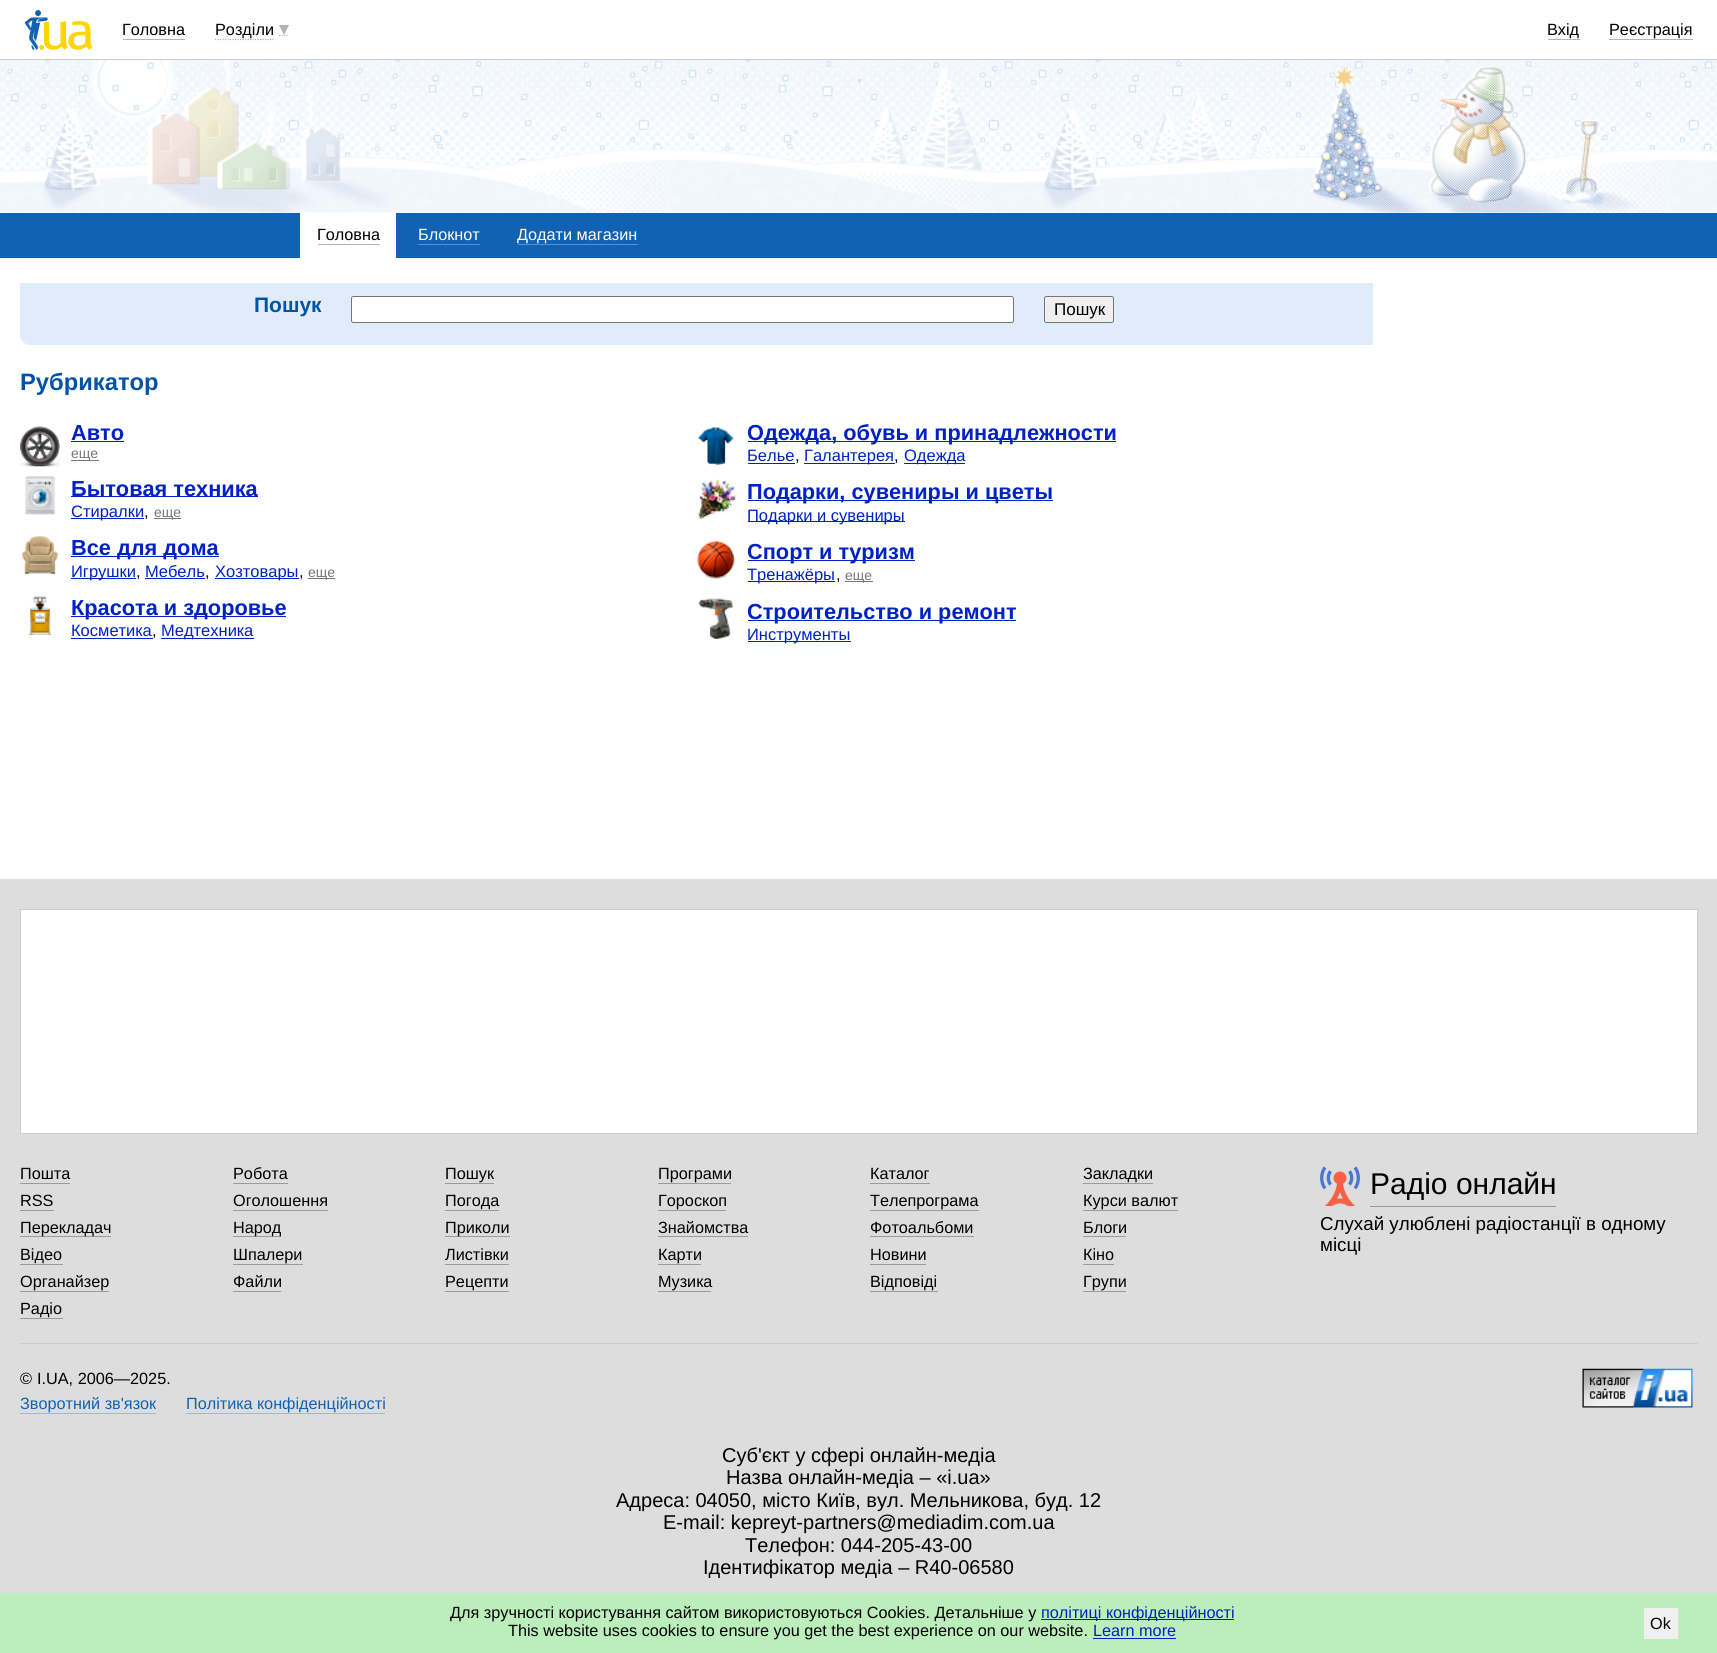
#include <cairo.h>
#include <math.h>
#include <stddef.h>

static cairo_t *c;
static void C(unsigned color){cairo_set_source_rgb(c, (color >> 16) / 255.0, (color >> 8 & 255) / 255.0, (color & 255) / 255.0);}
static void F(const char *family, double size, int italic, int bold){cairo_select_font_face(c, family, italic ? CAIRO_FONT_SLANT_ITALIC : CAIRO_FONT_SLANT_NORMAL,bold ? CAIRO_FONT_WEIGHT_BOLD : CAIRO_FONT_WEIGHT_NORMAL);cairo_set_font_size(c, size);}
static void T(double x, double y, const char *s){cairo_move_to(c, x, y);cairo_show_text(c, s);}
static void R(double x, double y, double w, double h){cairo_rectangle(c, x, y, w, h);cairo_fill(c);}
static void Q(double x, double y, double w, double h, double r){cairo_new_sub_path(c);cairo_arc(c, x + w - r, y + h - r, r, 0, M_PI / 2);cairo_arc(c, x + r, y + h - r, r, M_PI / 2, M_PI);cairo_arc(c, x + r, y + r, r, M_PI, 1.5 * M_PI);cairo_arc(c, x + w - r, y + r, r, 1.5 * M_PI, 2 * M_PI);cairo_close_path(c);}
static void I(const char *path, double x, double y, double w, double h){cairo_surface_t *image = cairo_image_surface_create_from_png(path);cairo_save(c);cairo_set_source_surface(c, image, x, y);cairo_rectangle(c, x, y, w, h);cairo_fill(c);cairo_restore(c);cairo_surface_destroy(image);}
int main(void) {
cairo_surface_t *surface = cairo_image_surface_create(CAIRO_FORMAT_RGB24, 1717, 1653);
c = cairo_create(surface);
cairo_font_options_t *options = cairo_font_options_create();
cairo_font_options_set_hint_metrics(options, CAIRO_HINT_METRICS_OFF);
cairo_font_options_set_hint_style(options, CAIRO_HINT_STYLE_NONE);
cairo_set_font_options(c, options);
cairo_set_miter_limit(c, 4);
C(0xffffff);
cairo_paint(c);
C(0xcccccc);
R(0,59,1717,1);
I("1.png",25,10,68,40);
F("Liberation Sans",16.25,0,0);
C(0x000000);
T(122,35,"Головна");
C(0xb3b3b3);
R(123,39,62,1);
cairo_new_path(c);
cairo_move_to(c,215,39.5);
cairo_line_to(c,274,39.5);
cairo_set_line_width(c,1.2);
cairo_set_dash(c,(double[]){1.25,1.25},2,0);
cairo_stroke(c);
cairo_new_path(c);
cairo_move_to(c,279,35.5);
cairo_line_to(c,289,35.5);
cairo_stroke(c);
C(0x000000);
T(215,35,"Розділи");
C(0xb3b3b3);
cairo_new_path(c);
cairo_move_to(c,279,25);
cairo_line_to(c,289,25);
cairo_line_to(c,284,35);
cairo_close_path(c);
cairo_fill(c);
C(0x000000);
T(1547,35,"Вхід");
C(0xb3b3b3);
R(1548,39,32,1);
C(0x000000);
T(1609,35,"Реєстрація");
C(0xb3b3b3);
R(1609,39,84,1);
I("2.png",0,60,1717,153);
C(0xdddddd);
R(858,79,3,3);
C(0x1162b3);
R(0,213,1717,45);
C(0xffffff);
R(300,213,96,45);
C(0x000000);
T(317,240,"Головна");
C(0xb3b3b3);
R(318,244,62,1);
C(0xffffff);
T(418,240,"Блокнот");
C(0x5891ca);
R(418,244,62,1);
C(0xffffff);
T(517,240,"Додати магазин");
C(0x5891ca);
R(518,244,120,1);
C(0xe1ecfa);
R(20,283,1353,62);
I("3.png",20,336,9,9);
F("Liberation Sans",21,0,1);
C(0x0053a5);
T(254,312,"Пошук");
C(0xffffff);
Q(351.5,296.5,662,26,2);
cairo_fill_preserve(c);
C(0x767676);
cairo_set_line_width(c,1);
cairo_set_dash(c,NULL,0,0);
cairo_stroke(c);
C(0xefefef);
Q(1044.5,296.5,69,26,2);
cairo_fill_preserve(c);
C(0x767676);
cairo_stroke(c);
F("Liberation Sans",17,0,0);
C(0x000000);
T(1054,315,"Пошук");
F("Liberation Sans",23.75,0,1);
C(0x0053a5);
T(20,390,"Рубрикатор");
I("4.png",20,426,40,41);
F("Liberation Sans",21.75,0,1);
C(0x0021c3);
T(71,440,"Авто");
R(71,441,53,1);
C(0x777777);
R(71,460,28,1);
F("Liberation Sans",14,0,0);
T(71,458,"еще");
I("5.png",25,476,31,39);
C(0x0021c3);
R(71,496,187,1);
F("Liberation Sans",21.75,0,1);
T(71,496,"Бытовая техника");
R(71,518,73,1);
F("Liberation Sans",16.5,0,0);
T(71,517,"Стиралки");
C(0x000000);
T(144,517,",");
C(0x777777);
R(154,518,27,1);
F("Liberation Sans",14,0,0);
T(154,517,"еще");
I("6.png",21,536,38,38);
C(0x0021c3);
R(71,556,148,1);
F("Liberation Sans",21.75,0,1);
T(71,555,"Все для дома");
R(71,578,65,1);
F("Liberation Sans",16.5,0,0);
T(71,577,"Игрушки");
C(0x000000);
T(136,577,",");
C(0x0021c3);
T(145,577,"Мебель");
R(145,578,60,1);
C(0x000000);
T(205,577,",");
C(0x0021c3);
R(215,578,84,1);
T(215,577,"Хозтовары");
C(0x000000);
T(299,577,",");
C(0x777777);
R(308,578,27,1);
F("Liberation Sans",14,0,0);
T(308,577,"еще");
I("7.png",28,596,24,39);
C(0x0021c3);
R(71,616,215,1);
F("Liberation Sans",21.75,0,1);
T(71,615,"Красота и здоровье");
F("Liberation Sans",16.5,0,0);
T(71,636,"Косметика");
R(71,638,82,1);
C(0x000000);
T(152,636,",");
C(0x0021c3);
R(161,638,93,1);
T(161,636,"Медтехника");
I("8.png",697,427,37,39);
R(748,441,368,1);
F("Liberation Sans",21.75,0,1);
T(747,440,"Одежда, обувь и принадлежности");
F("Liberation Sans",16.5,0,0);
T(747,461,"Белье");
R(748,463,47,1);
C(0x000000);
T(795,461,",");
C(0x0021c3);
R(804,463,91,1);
T(804,461,"Галантерея");
C(0x000000);
T(894,461,",");
C(0x0021c3);
R(904,463,61,1);
T(904,461,"Одежда");
I("9.png",698,478,39,41);
R(748,500,305,1);
F("Liberation Sans",21.75,0,1);
T(747,499,"Подарки, сувениры и цветы");
R(748,521,157,1);
F("Liberation Sans",16.5,0,0);
T(747,521,"Подарки и сувениры");
I("10.png",697,541,39,38);
R(748,560,167,1);
F("Liberation Sans",21.75,0,1);
T(747,559,"Спорт и туризм");
R(748,581,87,1);
F("Liberation Sans",16.5,0,0);
T(747,580,"Тренажёры");
C(0x000000);
T(836,580,",");
C(0x777777);
R(845,581,28,1);
F("Liberation Sans",14,0,0);
T(845,580,"еще");
I("11.png",698,598,36,41);
C(0x0021c3);
R(748,620,268,1);
F("Liberation Sans",21.75,0,1);
T(747,619,"Строительство и ремонт");
R(748,641,103,1);
F("Liberation Sans",16.5,0,0);
T(747,640,"Инструменты");
C(0xdddddd);
R(0,879,1717,714);
C(0xffffff);
cairo_rectangle(c,20.5,909.5,1677,224);
cairo_fill_preserve(c);
C(0xcccccc);
cairo_stroke(c);
F("Liberation Sans",16.25,0,0);
C(0x000000);
T(20,1179,"Пошта");
C(0x9b9b9b);
R(20,1183,50,1);
C(0x000000);
T(233,1179,"Робота");
C(0x9b9b9b);
R(233,1183,55,1);
C(0x000000);
T(445,1179,"Пошук");
C(0x9b9b9b);
R(445,1183,49,1);
C(0x000000);
T(658,1179,"Програми");
C(0x9b9b9b);
R(658,1183,73,1);
C(0x000000);
T(870,1179,"Каталог");
C(0x9b9b9b);
R(870,1183,60,1);
C(0x000000);
T(1083,1179,"Закладки");
C(0x9b9b9b);
R(1083,1183,70,1);
C(0x000000);
T(20,1206,"RSS");
C(0x9b9b9b);
R(20,1210,34,1);
C(0x000000);
T(233,1206,"Оголошення");
C(0x9b9b9b);
R(233,1210,95,1);
C(0x000000);
T(445,1206,"Погода");
C(0x9b9b9b);
R(445,1210,54,1);
C(0x000000);
T(658,1206,"Гороскоп");
C(0x9b9b9b);
R(658,1210,68,1);
C(0x000000);
T(870,1206,"Телепрограма");
C(0x9b9b9b);
R(870,1210,109,1);
C(0x000000);
T(1083,1206,"Курси валют");
C(0x9b9b9b);
R(1083,1210,95,1);
R(20,1236,91,1);
C(0x000000);
T(20,1233,"Перекладач");
C(0x9b9b9b);
R(233,1236,48,1);
C(0x000000);
T(233,1233,"Народ");
C(0x9b9b9b);
R(445,1236,65,1);
C(0x000000);
T(445,1233,"Приколи");
T(658,1233,"Знайомства");
C(0x9b9b9b);
R(658,1236,90,1);
C(0x000000);
T(870,1233,"Фотоальбоми");
C(0x9b9b9b);
R(870,1236,104,1);
C(0x000000);
T(1083,1233,"Блоги");
C(0x9b9b9b);
R(1083,1236,43,1);
C(0x000000);
T(20,1260,"Відео");
C(0x9b9b9b);
R(20,1264,43,1);
C(0x000000);
T(233,1260,"Шпалери");
C(0x9b9b9b);
R(233,1264,70,1);
C(0x000000);
T(445,1260,"Листівки");
C(0x9b9b9b);
R(445,1264,64,1);
C(0x000000);
T(658,1260,"Карти");
C(0x9b9b9b);
R(658,1264,43,1);
C(0x000000);
T(870,1260,"Новини");
C(0x9b9b9b);
R(870,1264,56,1);
C(0x000000);
T(1083,1260,"Кіно");
C(0x9b9b9b);
R(1083,1264,31,1);
C(0x000000);
T(20,1287,"Органайзер");
C(0x9b9b9b);
R(20,1291,89,1);
C(0x000000);
T(233,1287,"Файли");
C(0x9b9b9b);
R(233,1291,48,1);
C(0x000000);
T(445,1287,"Рецепти");
C(0x9b9b9b);
R(445,1291,64,1);
C(0x000000);
T(658,1287,"Музика");
C(0x9b9b9b);
R(658,1291,53,1);
C(0x000000);
T(870,1287,"Відповіді");
C(0x9b9b9b);
R(870,1291,68,1);
C(0x000000);
T(1083,1287,"Групи");
C(0x9b9b9b);
R(1083,1291,43,1);
C(0x000000);
T(20,1314,"Радіо");
C(0x9b9b9b);
R(20,1318,43,1);
R(1370,1206,186,1);
I("12.png",1320,1166,40,40);
F("Liberation Sans",30,0,0);
C(0x000000);
T(1370,1194,"Радіо онлайн");
F("Liberation Sans",18.75,0,0);
T(1320,1230,"Слухай улюблені радіостанції в одному");
T(1320,1251,"місці");
C(0xcccccc);
R(20,1343,1678,1);
F("Liberation Sans",16.25,0,0);
C(0x000000);
T(20,1384,"©");
T(37,1384,"I.UA, 2006—2025.");
C(0xa0b8d0);
R(1692,1388,1,1);
I("13.png",1582,1368,111,40);
C(0x1162b3);
T(20,1409,"Зворотний зв'язок");
C(0xa0b8d0);
R(20,1413,136,1);
C(0x1162b3);
T(186,1409,"Політика конфіденційності");
C(0xa0b8d0);
R(186,1413,199,1);
F("Liberation Sans",20,0,0);
C(0x000000);
T(722,1462,"Суб'єкт у сфері онлайн-медіа");
T(726,1484,"Назва онлайн-медіа – «i.ua»");
T(616,1507,"Адреса: 04050, місто Київ, вул. Мельникова, буд. 12");
T(663,1529,"E-mail: kepreyt-partners@mediadim.com.ua");
T(745,1552,"Телефон: 044-205-43-00");
T(703,1574,"Ідентифікатор медіа – R40-06580");
C(0xbbeebb);
R(0,1593,1717,60);
F("Liberation Sans",16.25,0,0);
C(0x000000);
T(450,1618,"Для зручності користування сайтом використовуються Cookies. Детальніше у");
C(0x0021c3);
R(1041,1619,193,1);
T(1041,1618,"політиці конфіденційності");
C(0x000000);
T(508,1636,"This website uses cookies to ensure you get the best experience on our website.");
C(0x0021c3);
T(1093,1636,"Learn more");
C(0xbbeebb);
R(1095,1621,62,1);
C(0x0021c3);
R(1093,1638,83,1);
C(0xf0f0f0);
R(1644,1608,34,31);
C(0x000000);
T(1650,1629,"Ok");
cairo_surface_write_to_png(surface, "o.png");
cairo_font_options_destroy(options);
cairo_destroy(c);
cairo_surface_destroy(surface);
return 0;
}
